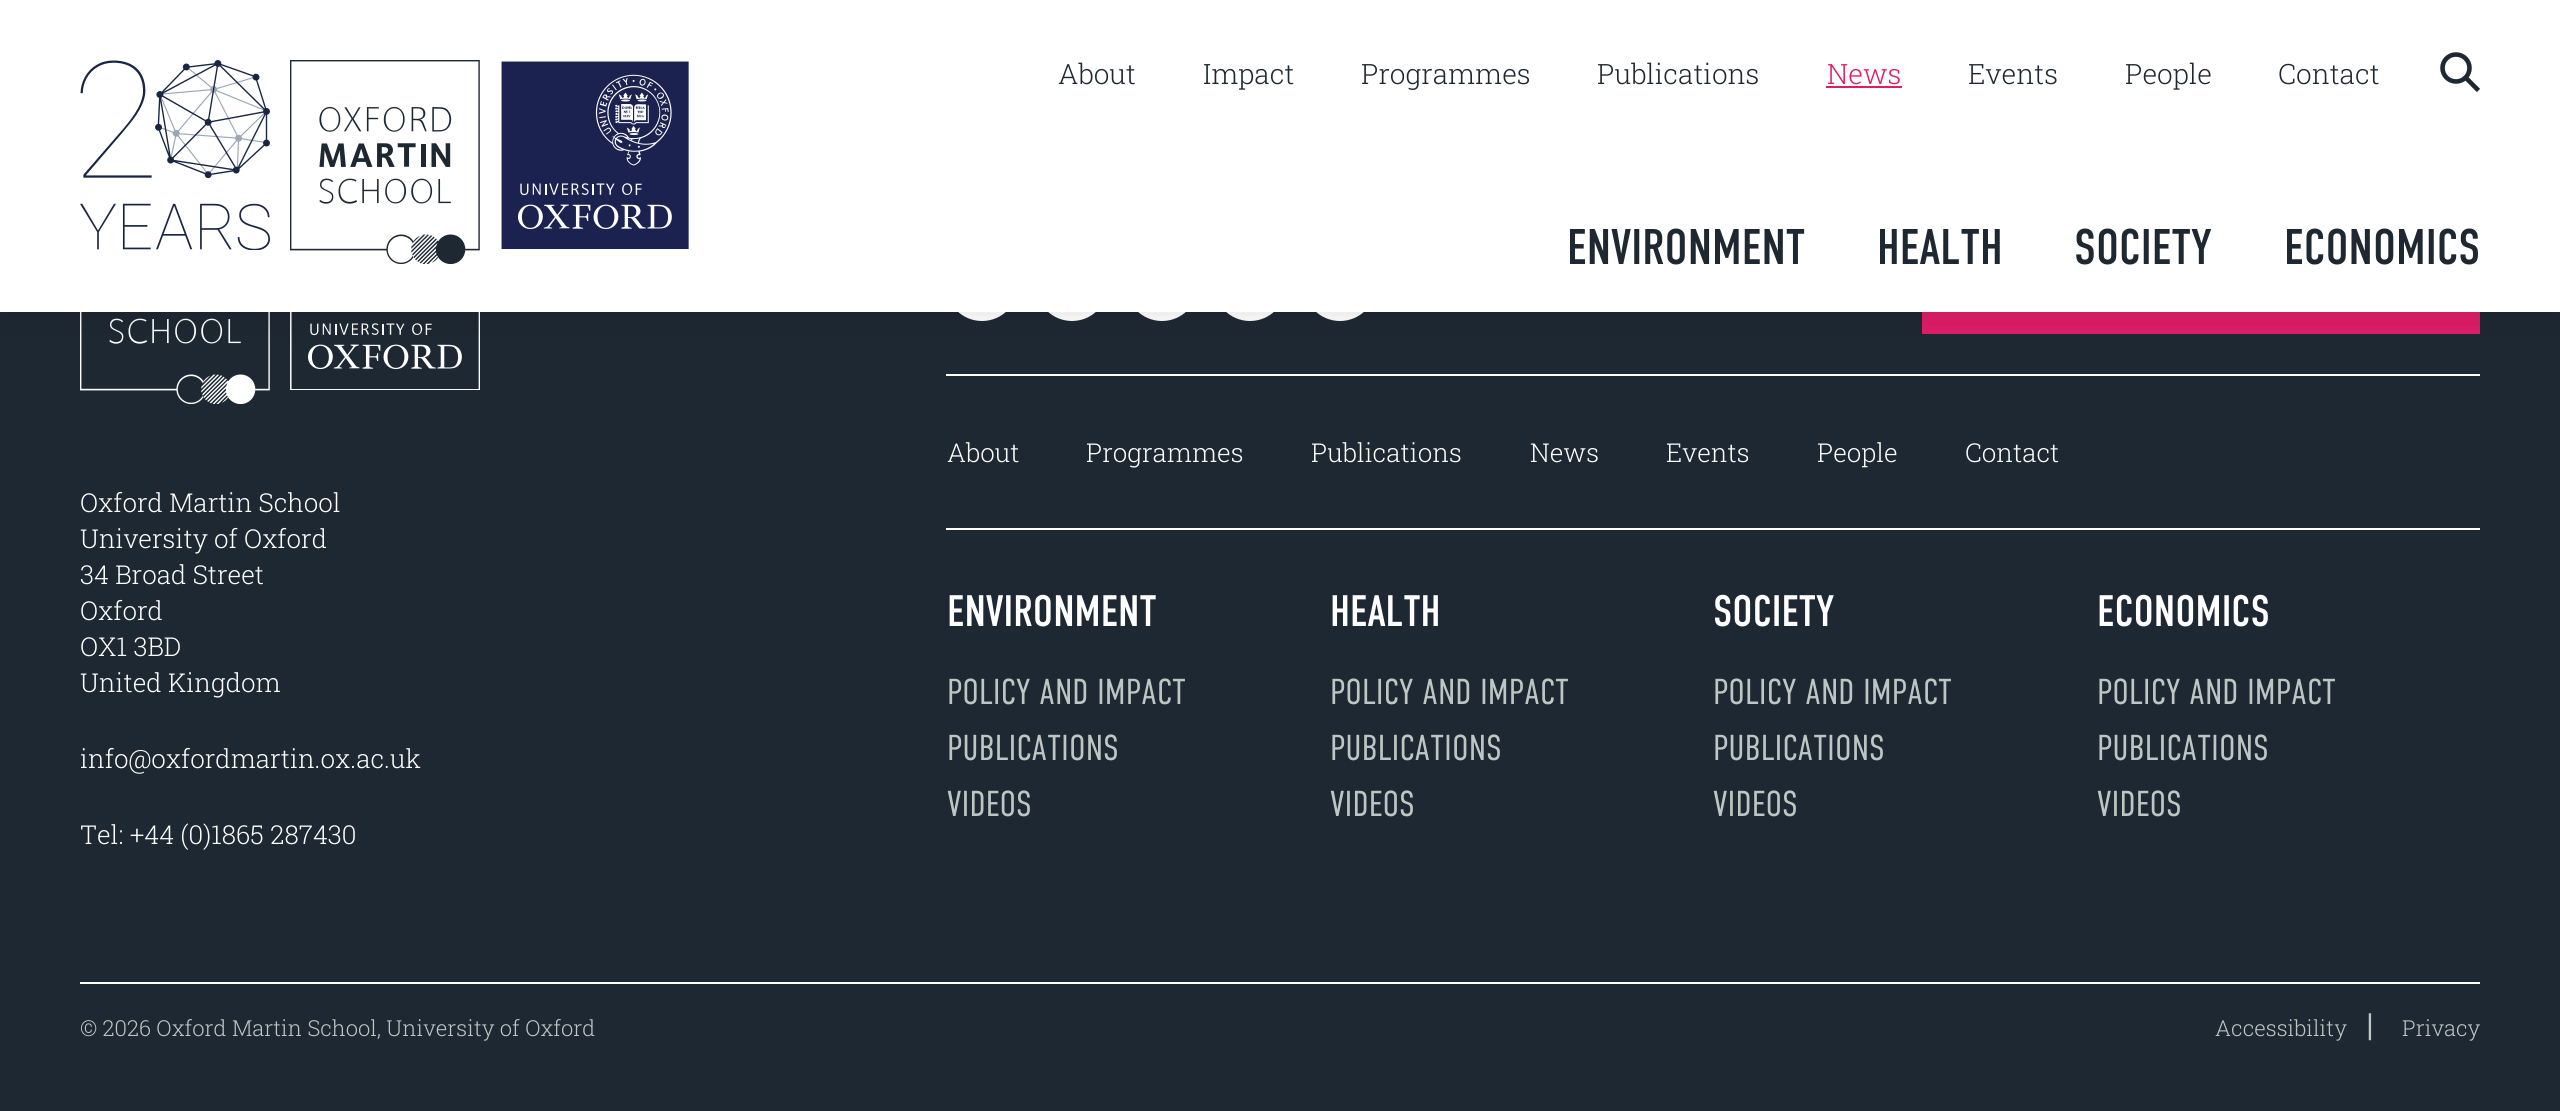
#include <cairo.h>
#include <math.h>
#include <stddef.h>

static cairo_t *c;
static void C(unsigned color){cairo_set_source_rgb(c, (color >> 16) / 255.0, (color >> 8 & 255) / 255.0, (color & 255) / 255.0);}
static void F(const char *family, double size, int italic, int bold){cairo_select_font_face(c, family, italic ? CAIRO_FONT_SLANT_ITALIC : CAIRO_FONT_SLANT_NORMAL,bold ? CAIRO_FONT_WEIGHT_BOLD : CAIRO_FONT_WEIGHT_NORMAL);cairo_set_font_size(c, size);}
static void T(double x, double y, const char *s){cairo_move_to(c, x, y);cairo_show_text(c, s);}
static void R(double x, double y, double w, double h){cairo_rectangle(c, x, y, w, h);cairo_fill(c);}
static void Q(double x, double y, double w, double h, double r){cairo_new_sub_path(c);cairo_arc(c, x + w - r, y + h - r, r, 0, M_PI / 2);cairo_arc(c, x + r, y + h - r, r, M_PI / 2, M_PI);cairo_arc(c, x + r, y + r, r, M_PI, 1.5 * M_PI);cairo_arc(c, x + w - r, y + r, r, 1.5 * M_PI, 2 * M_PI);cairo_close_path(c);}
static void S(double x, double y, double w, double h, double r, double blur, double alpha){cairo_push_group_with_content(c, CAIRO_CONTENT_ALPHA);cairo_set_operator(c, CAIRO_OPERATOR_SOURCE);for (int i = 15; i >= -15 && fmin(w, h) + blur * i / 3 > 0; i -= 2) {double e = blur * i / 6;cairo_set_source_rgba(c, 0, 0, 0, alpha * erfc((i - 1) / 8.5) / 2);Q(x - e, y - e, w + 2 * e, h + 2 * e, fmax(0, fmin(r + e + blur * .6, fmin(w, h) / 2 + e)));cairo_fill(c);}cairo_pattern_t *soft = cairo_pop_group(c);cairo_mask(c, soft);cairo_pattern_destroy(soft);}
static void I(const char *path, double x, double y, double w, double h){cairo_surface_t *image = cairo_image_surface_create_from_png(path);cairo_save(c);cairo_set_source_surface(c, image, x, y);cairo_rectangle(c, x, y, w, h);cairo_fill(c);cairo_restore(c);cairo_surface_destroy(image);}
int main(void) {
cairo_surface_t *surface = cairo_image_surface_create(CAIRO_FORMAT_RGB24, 2560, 1111);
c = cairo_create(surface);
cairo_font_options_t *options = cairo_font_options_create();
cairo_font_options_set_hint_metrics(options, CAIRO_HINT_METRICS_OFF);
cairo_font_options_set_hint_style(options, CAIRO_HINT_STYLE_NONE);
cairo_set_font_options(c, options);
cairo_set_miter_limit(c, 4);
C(0x1e2832);
cairo_paint(c);
I("4.png",80,312,190,92);
I("5.png",290,312,190,78);
I("6.png",958,312,48,9);
I("6.png",1048,312,48,9);
I("6.png",1138,312,48,9);
I("6.png",1226,312,48,9);
I("6.png",1316,312,48,9);
C(0xdd1d67);
R(1922,312,558,22);
C(0x000000);
S(0,6,2560,312,0,15,.1);
C(0xffffff);
R(0,0,2560,312);
I("1.png",80,60,190,190);
I("2.png",290,60,190,204);
I("3.png",501,61,188,189);
F("Roboto Slab Light",28,0,0);
C(0x1e2832);
T(1058,84,"About");
T(1203,84,"Impact");
T(1361,84,"Programmes");
T(1597,84,"Publications");
C(0xdd1d67);
T(1827,84,"News");
R(1826,86,76,2);
C(0x1e2832);
T(1968,84,"Events");
T(2125,84,"People");
T(2278,84,"Contact");
cairo_new_path(c);
cairo_arc(c,2456,68,13.5,0,2 * M_PI);
cairo_set_line_width(c,4.6);
cairo_stroke(c);
cairo_new_path(c);
cairo_move_to(c,2465.5,77.5);
cairo_line_to(c,2478.5,90.5);
cairo_stroke(c);
F("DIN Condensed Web",50,0,0);
T(1567,264,"ENVIRONMENT");
T(1877,264,"HEALTH");
T(2074,264,"SOCIETY");
T(2284,264,"ECONOMICS");
F("Roboto Slab Light",26,0,0);
C(0xffffff);
T(80,512,"Oxford Martin School");
T(80,548,"University of Oxford");
T(80,584,"34 Broad Street");
T(80,620,"Oxford");
T(80,656,"OX1 3BD");
T(80,692,"United Kingdom");
T(80,768,"info@oxfordmartin.ox.ac.uk");
T(80,844,"Tel: +44 (0)1865 287430");
R(946,374,1534,2);
R(946,528,1534,2);
T(947,462,"About");
T(1086,462,"Programmes");
T(1311,462,"Publications");
T(1530,462,"News");
T(1666,462,"Events");
T(1817,462,"People");
T(1965,462,"Contact");
F("DIN Condensed Web",44,0,0);
T(947,626,"ENVIRONMENT");
F("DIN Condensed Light",36,0,0);
C(0xbec6c3);
T(947,704,"POLICY AND IMPACT");
T(947,760,"PUBLICATIONS");
T(947,816,"VIDEOS");
F("DIN Condensed Web",44,0,0);
C(0xffffff);
T(1330,626,"HEALTH");
F("DIN Condensed Light",36,0,0);
C(0xbec6c3);
T(1330,704,"POLICY AND IMPACT");
T(1330,760,"PUBLICATIONS");
T(1330,816,"VIDEOS");
F("DIN Condensed Web",44,0,0);
C(0xffffff);
T(1713,626,"SOCIETY");
F("DIN Condensed Light",36,0,0);
C(0xbec6c3);
T(1713,704,"POLICY AND IMPACT");
T(1713,760,"PUBLICATIONS");
T(1713,816,"VIDEOS");
F("DIN Condensed Web",44,0,0);
C(0xffffff);
T(2097,626,"ECONOMICS");
F("DIN Condensed Light",36,0,0);
C(0xbec6c3);
T(2097,704,"POLICY AND IMPACT");
T(2097,760,"PUBLICATIONS");
T(2097,816,"VIDEOS");
C(0xffffff);
R(80,982,2400,2);
F("Roboto Slab Light",22,0,0);
C(0xbec6c3);
T(80,1036,"© 2026 Oxford Martin School, University of Oxford");
T(2215,1036,"Accessibility");
F("Roboto Condensed",32,0,0);
T(2366,1036,"|");
F("Roboto Slab Light",22,0,0);
T(2402,1036,"Privacy");
cairo_surface_write_to_png(surface, "o.png");
cairo_font_options_destroy(options);
cairo_destroy(c);
cairo_surface_destroy(surface);
return 0;
}
